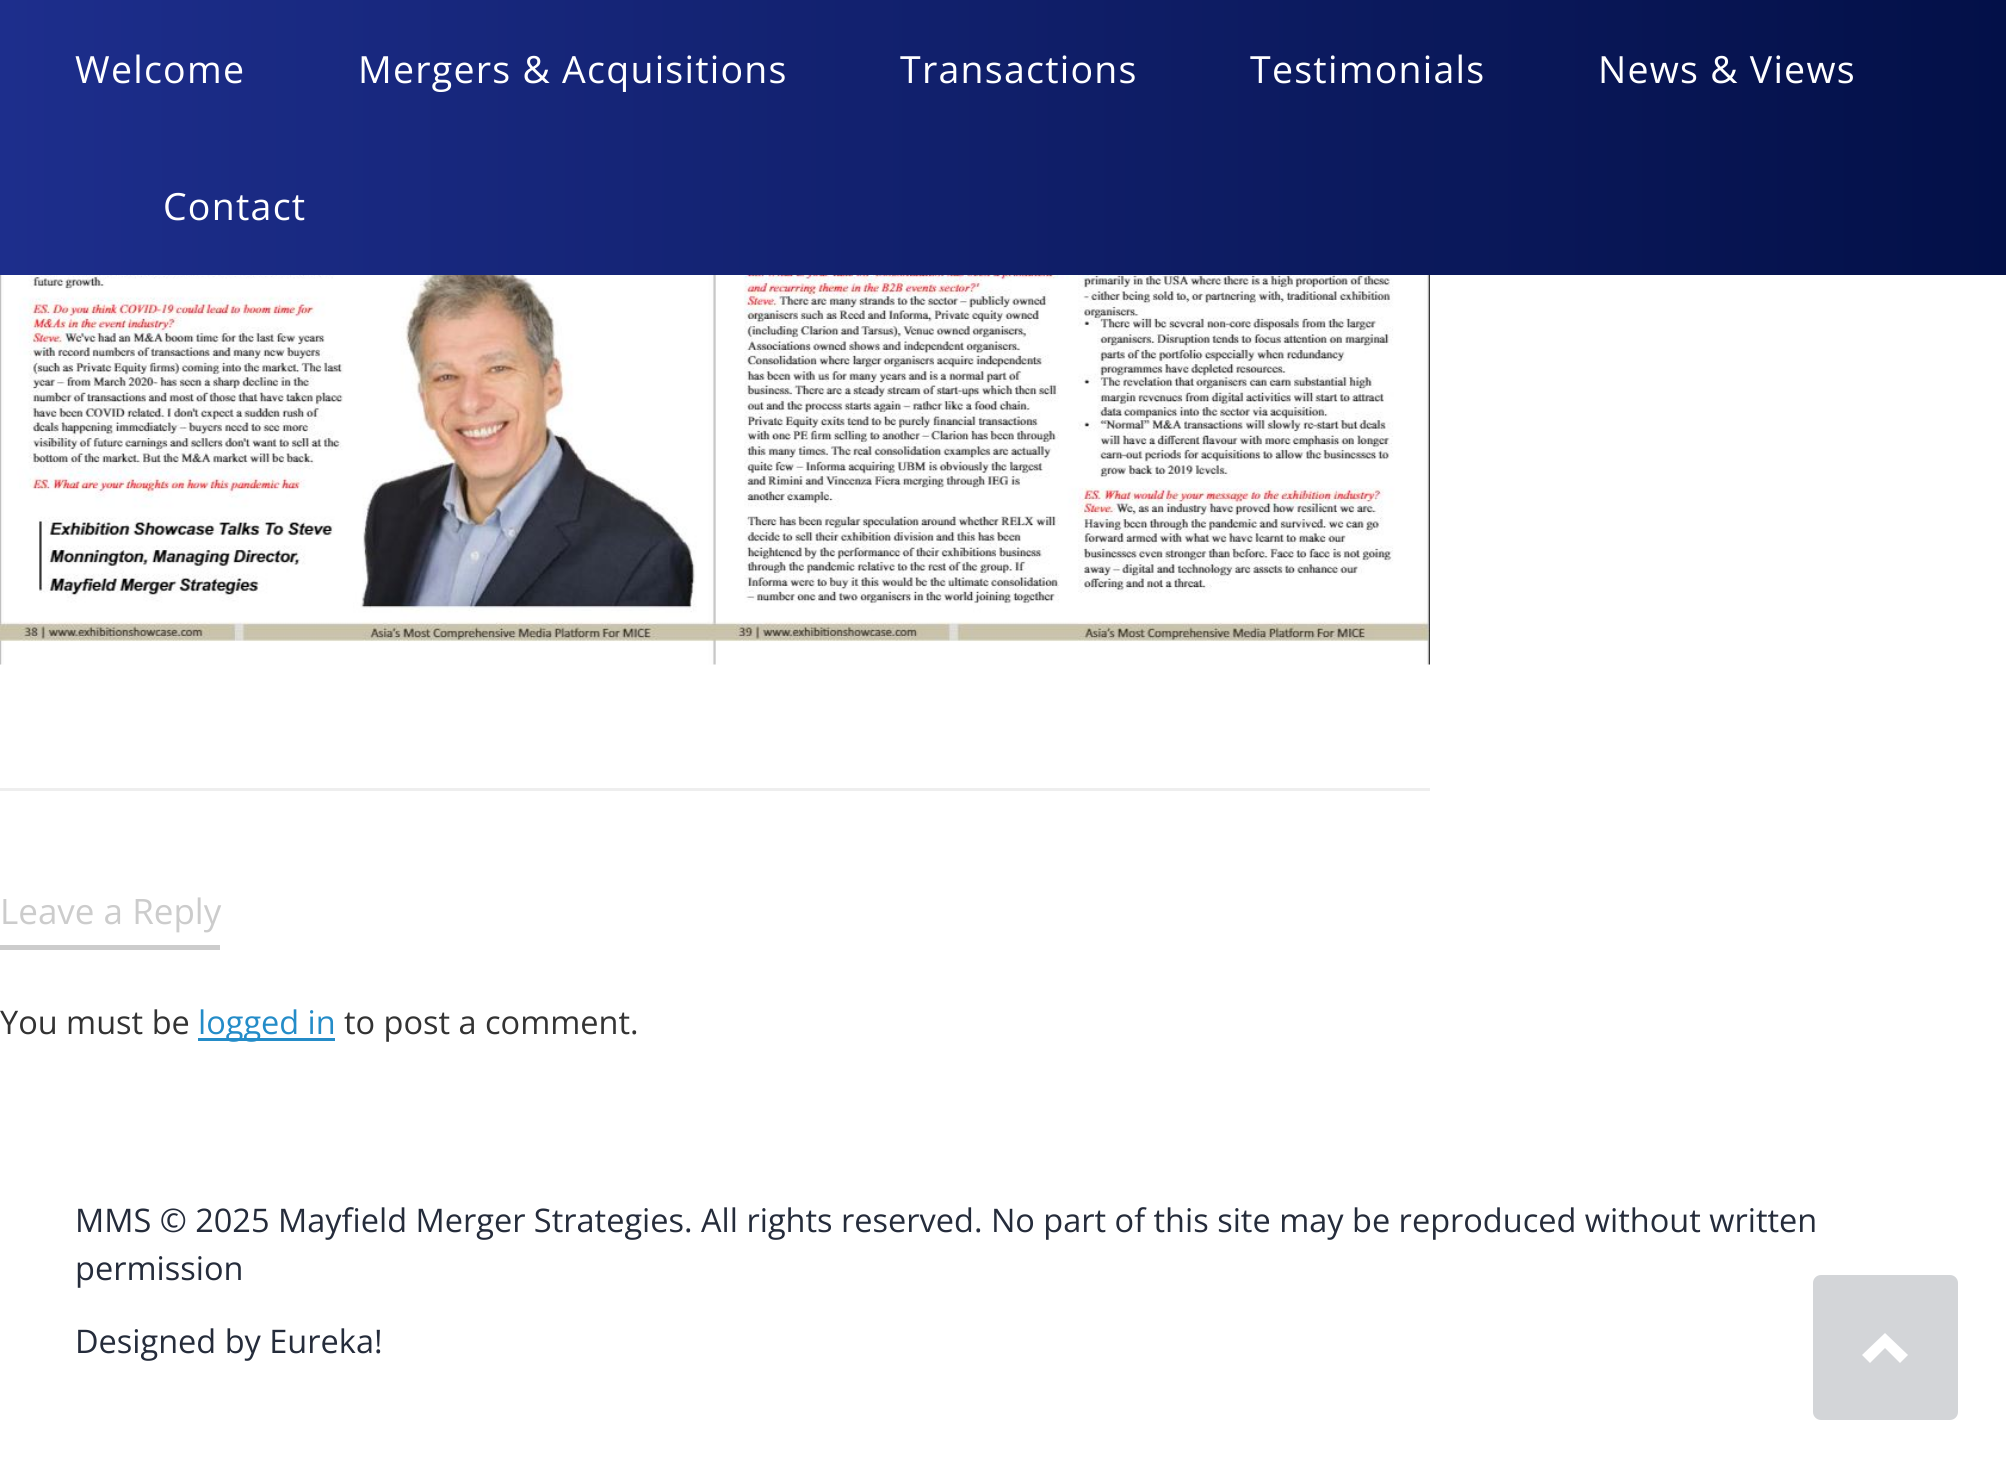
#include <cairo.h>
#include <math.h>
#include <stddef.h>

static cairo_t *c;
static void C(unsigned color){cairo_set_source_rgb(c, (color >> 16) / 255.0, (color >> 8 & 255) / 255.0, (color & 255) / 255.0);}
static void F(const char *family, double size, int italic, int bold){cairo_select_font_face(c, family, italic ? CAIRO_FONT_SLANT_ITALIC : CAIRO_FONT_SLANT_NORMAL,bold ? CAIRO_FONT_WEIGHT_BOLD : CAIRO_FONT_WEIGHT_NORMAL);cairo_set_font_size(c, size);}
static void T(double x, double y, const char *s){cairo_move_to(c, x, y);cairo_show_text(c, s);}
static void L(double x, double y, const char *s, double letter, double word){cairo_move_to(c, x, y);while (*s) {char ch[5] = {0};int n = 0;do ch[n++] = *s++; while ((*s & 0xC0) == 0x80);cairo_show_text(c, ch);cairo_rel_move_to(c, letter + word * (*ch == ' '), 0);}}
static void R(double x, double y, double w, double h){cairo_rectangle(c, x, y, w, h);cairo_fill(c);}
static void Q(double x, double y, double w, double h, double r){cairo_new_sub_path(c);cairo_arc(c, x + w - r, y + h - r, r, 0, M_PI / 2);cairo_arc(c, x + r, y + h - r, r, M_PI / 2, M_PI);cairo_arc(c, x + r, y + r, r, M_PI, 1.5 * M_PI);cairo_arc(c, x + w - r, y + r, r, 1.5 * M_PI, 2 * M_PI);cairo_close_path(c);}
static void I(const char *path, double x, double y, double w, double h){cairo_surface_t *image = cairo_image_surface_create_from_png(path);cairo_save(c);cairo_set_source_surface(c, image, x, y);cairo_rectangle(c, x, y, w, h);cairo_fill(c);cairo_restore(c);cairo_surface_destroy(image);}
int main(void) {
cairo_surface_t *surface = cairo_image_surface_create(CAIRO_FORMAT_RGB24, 2006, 1468);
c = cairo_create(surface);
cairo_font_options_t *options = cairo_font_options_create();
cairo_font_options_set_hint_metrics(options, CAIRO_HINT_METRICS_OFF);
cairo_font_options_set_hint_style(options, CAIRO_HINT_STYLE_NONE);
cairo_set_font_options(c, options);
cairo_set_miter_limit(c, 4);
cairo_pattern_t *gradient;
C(0xffffff);
cairo_paint(c);
gradient = cairo_pattern_create_linear(0,138,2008,137);
cairo_pattern_add_color_stop_rgba(gradient,0,0.114,0.18,0.549,1);
cairo_pattern_add_color_stop_rgba(gradient,1,0.012,0.063,0.282,1);
cairo_set_source(c,gradient);
cairo_pattern_destroy(gradient);
R(0,0,2006,275);
F("Open Sans",37.5,0,0);
C(0xffffff);
L(75,83,"Welcome",1.25,0);
L(358,83,"Mergers & Acquisitions",1.25,0);
L(900,83,"Transactions",1.25,0);
L(1250,83,"Testimonials",1.25,0);
L(1598,83,"News & Views",1.25,0);
L(163,220,"Contact",1.25,0);
C(0xeeeeee);
R(0,788,1430,3);
I("1.png",0,275,1430,390);
C(0xcccccc);
R(0,945,220,5);
F("Open Sans",35,0,0);
T(0,924,"Leave a Reply");
F("Open Sans",32.5,0,0);
C(0x333333);
T(0,1034,"You must be");
C(0x248cc8);
R(198,1038,137,3);
T(198,1034,"logged in");
C(0x333333);
T(344,1034,"to post a comment.");
C(0x252c3b);
T(75,1232,"MMS © 2025 Mayfield Merger Strategies. All rights reserved. No part of this site may be reproduced without written");
T(75,1280,"permission");
T(75,1353,"Designed by Eureka!");
C(0xd3d5d8);
Q(1813,1275,145,145,8);
cairo_fill(c);
C(0xffffff);
cairo_new_path(c);
cairo_move_to(c,1908,1355);
cairo_line_to(c,1885,1333);
cairo_line_to(c,1862,1355);
cairo_line_to(c,1870,1363);
cairo_line_to(c,1885,1348);
cairo_line_to(c,1900,1363);
cairo_close_path(c);
cairo_fill(c);
cairo_surface_write_to_png(surface, "o.png");
cairo_font_options_destroy(options);
cairo_destroy(c);
cairo_surface_destroy(surface);
return 0;
}
